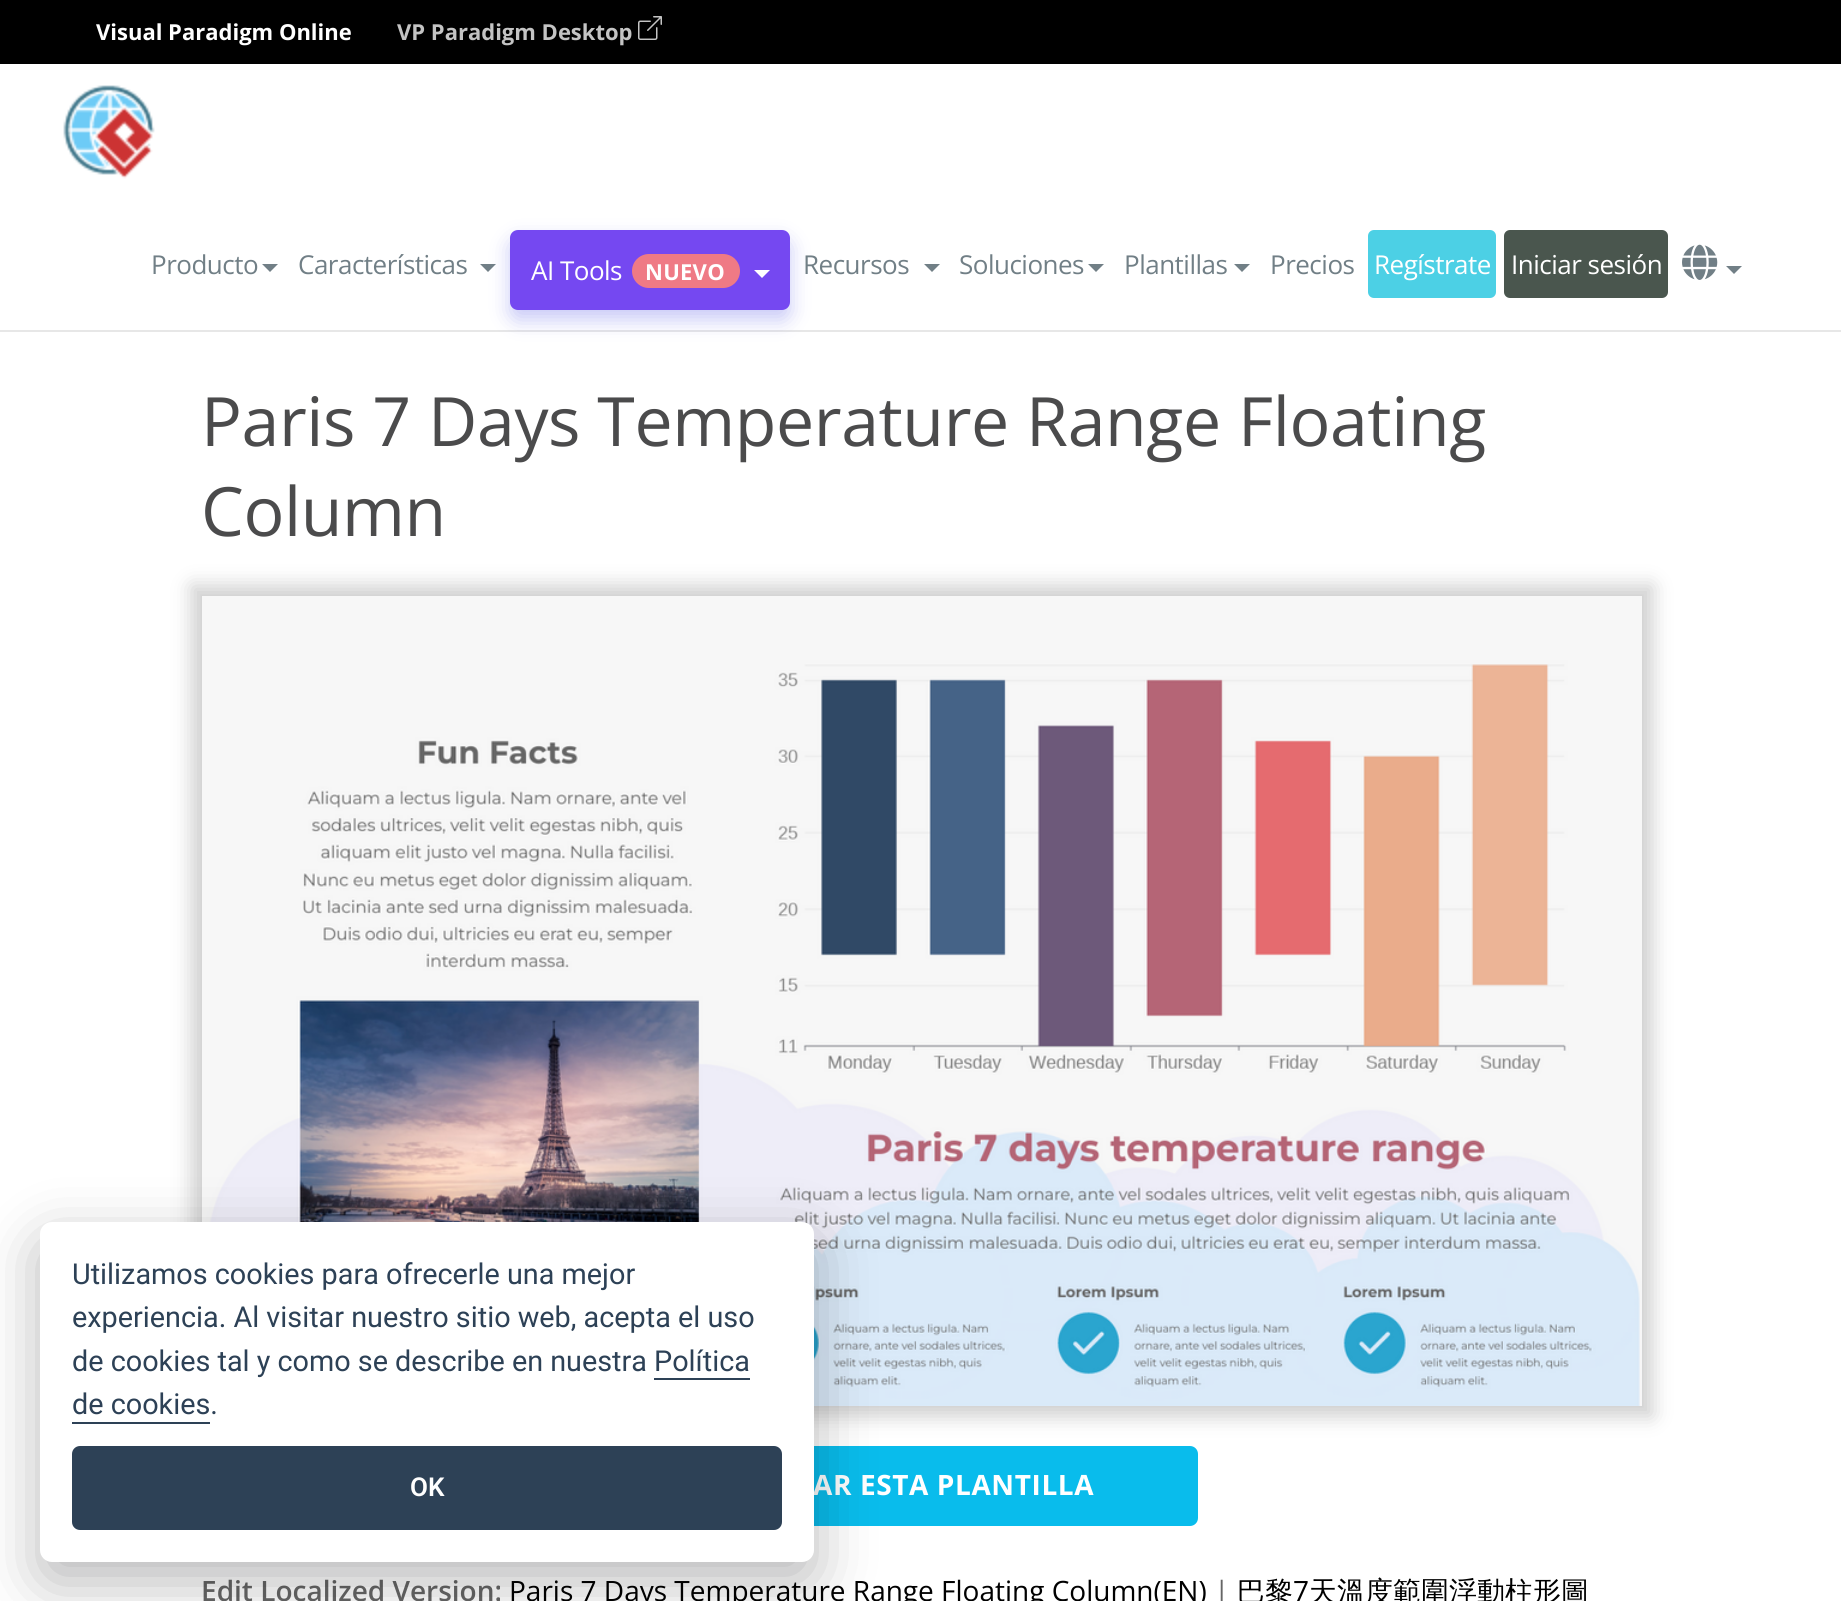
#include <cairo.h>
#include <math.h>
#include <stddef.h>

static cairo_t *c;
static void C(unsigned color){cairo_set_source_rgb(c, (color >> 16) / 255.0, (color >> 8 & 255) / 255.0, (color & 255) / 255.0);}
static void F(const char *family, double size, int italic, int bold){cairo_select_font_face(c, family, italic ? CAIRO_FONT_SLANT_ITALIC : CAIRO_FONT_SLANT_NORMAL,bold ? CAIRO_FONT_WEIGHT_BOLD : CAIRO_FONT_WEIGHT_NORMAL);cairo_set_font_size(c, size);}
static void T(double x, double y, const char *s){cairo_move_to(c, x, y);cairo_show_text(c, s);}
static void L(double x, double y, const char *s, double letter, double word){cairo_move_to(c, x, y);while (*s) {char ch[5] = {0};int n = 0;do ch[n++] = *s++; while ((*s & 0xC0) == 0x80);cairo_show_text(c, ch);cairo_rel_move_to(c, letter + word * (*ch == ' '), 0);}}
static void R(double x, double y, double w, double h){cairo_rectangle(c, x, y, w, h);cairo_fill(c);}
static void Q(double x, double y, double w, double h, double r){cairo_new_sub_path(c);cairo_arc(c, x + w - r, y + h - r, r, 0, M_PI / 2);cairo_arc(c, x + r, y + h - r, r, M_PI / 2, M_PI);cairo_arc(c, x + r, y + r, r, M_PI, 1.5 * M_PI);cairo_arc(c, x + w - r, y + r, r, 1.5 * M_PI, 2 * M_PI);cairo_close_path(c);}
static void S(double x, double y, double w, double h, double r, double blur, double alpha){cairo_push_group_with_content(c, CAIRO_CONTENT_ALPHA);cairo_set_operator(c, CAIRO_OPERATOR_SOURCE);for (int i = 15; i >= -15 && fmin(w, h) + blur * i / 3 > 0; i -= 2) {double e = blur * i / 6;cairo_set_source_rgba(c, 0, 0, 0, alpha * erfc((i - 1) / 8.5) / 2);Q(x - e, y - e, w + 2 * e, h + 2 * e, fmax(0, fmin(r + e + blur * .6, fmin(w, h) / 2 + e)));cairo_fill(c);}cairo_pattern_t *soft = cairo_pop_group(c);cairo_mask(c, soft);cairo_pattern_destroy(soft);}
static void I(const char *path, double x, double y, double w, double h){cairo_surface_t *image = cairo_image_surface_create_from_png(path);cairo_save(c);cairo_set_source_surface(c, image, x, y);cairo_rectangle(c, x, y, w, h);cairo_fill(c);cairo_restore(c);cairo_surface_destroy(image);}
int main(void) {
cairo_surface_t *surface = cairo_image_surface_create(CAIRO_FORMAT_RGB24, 1841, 1601);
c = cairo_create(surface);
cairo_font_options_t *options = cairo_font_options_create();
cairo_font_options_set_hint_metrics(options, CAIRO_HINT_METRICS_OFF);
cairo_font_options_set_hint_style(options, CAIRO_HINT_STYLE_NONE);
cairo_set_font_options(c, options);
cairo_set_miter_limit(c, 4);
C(0xffffff);
cairo_paint(c);
C(0xe7e7e7);
R(0,330,1841,2);
C(0x000000);
R(0,0,1841,64);
F("Open Sans",22,0,1);
C(0xffffff);
T(96,40,"Visual Paradigm Online");
C(0xc4c4c4);
T(397,40,"VP Paradigm Desktop");
I("1.png",638,16,24,24);
I("2.png",63,85,92,94);
F("Open Sans",26,0,0);
C(0x717f86);
L(151,274,"Producto",-.5,0);
cairo_new_path(c);
cairo_move_to(c,262,264);
cairo_line_to(c,278,264);
cairo_line_to(c,270,272);
cairo_close_path(c);
cairo_fill(c);
L(298,274,"Características",-.5,0);
cairo_new_path(c);
cairo_move_to(c,480,264);
cairo_line_to(c,496,264);
cairo_line_to(c,488,272);
cairo_close_path(c);
cairo_fill(c);
C(0x4c4ee5);
S(510,240,280,80,8,10,.3);
C(0x7548f1);
Q(510,230,280,80,8);
cairo_fill(c);
C(0xffffff);
L(531,280,"AI Tools",-.5,0);
C(0xef7a85);
Q(632,254,108,34,17);
cairo_fill(c);
F("Open Sans",22,0,1);
C(0xffffff);
L(645,280,"NUEVO",.25,0);
cairo_new_path(c);
cairo_move_to(c,754,270);
cairo_line_to(c,770,270);
cairo_line_to(c,762,278);
cairo_close_path(c);
cairo_fill(c);
F("Open Sans",26,0,0);
C(0x717f86);
L(803,274,"Recursos",-.5,0);
cairo_new_path(c);
cairo_move_to(c,924,264);
cairo_line_to(c,940,264);
cairo_line_to(c,932,272);
cairo_close_path(c);
cairo_fill(c);
L(959,274,"Soluciones",-.5,0);
cairo_new_path(c);
cairo_move_to(c,1088,264);
cairo_line_to(c,1104,264);
cairo_line_to(c,1096,272);
cairo_close_path(c);
cairo_fill(c);
L(1124,274,"Plantillas",-.5,0);
cairo_new_path(c);
cairo_move_to(c,1234,264);
cairo_line_to(c,1250,264);
cairo_line_to(c,1242,272);
cairo_close_path(c);
cairo_fill(c);
L(1270,274,"Precios",-.5,0);
C(0x4cd0e5);
Q(1368,230,128,68,6);
cairo_fill(c);
C(0xffffff);
L(1374,274,"Regístrate",-.5,0);
C(0x4a564e);
Q(1504,230,164,68,6);
cairo_fill(c);
C(0xffffff);
L(1511,274,"Iniciar sesión",-.5,0);
I("3.png",1682,244,36,36);
C(0x717f86);
cairo_new_path(c);
cairo_move_to(c,1726,266);
cairo_line_to(c,1742,266);
cairo_line_to(c,1734,274);
cairo_close_path(c);
cairo_fill(c);
F("Open Sans",68,0,0);
C(0x4b4b4c);
L(201,446,"Paris 7 Days Temperature Range Floating",-.4,0);
L(201,536,"Column",-.4,0);
C(0xb8b8b8);
S(192,586,1460,830,0,10,.7);
I("4.png",202,596,1440,810);
C(0x09bcec);
Q(644,1446,554,80,8);
cairo_fill(c);
F("Open Sans",28,0,1);
C(0xffffff);
L(813,1495,"AR ESTA PLANTILLA",.6,0);
F("Open Sans SemiBold",28,0,0);
C(0x666666);
T(201,1601,"Edit Localized Version:");
F("Open Sans",28,0,0);
C(0x000000);
T(509,1601,"Paris 7 Days Temperature Range Floating Column(EN)");
C(0x666666);
T(1214,1601,"|");
F("WenQuanYi Zen Hei Medium",28,0,0);
C(0x000000);
T(1237,1601,"巴黎");
F("Open Sans",28,0,0);
T(1293,1601,"7");
F("WenQuanYi Zen Hei Medium",28,0,0);
T(1309,1601,"天溫度範圍浮動柱形圖");
C(0x020203);
S(40,1242,774,340,12,30,.28);
C(0xffffff);
Q(40,1222,774,340,12);
cairo_fill(c);
F("Roboto",28.8,0,0);
C(0x2d4156);
T(72,1284,"Utilizamos cookies para ofrecerle una mejor");
T(72,1327,"experiencia. Al visitar nuestro sitio web, acepta el uso");
T(72,1371,"de cookies tal y como se describe en nuestra");
T(654,1371,"Política");
R(654,1378,96,2);
T(72,1414,"de cookies.");
R(72,1422,138,2);
Q(72,1446,710,84,8);
cairo_fill(c);
F("Roboto SemiBold",26,0,0);
C(0xffffff);
T(410,1496,"OK");
cairo_surface_write_to_png(surface, "o.png");
cairo_font_options_destroy(options);
cairo_destroy(c);
cairo_surface_destroy(surface);
return 0;
}
